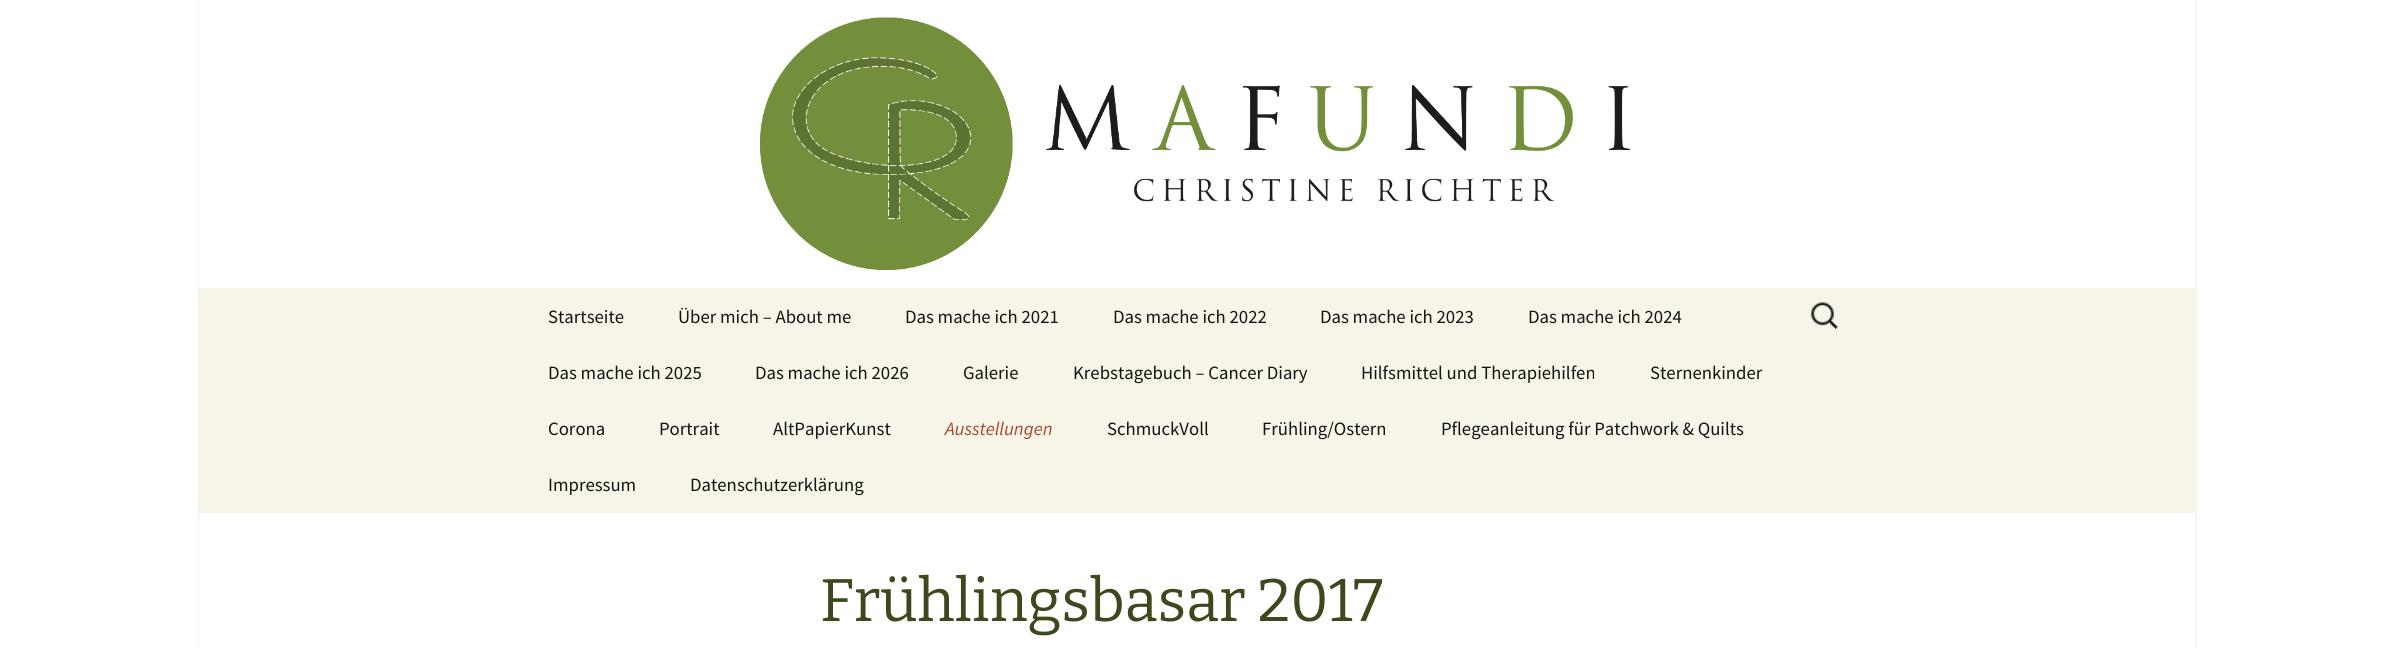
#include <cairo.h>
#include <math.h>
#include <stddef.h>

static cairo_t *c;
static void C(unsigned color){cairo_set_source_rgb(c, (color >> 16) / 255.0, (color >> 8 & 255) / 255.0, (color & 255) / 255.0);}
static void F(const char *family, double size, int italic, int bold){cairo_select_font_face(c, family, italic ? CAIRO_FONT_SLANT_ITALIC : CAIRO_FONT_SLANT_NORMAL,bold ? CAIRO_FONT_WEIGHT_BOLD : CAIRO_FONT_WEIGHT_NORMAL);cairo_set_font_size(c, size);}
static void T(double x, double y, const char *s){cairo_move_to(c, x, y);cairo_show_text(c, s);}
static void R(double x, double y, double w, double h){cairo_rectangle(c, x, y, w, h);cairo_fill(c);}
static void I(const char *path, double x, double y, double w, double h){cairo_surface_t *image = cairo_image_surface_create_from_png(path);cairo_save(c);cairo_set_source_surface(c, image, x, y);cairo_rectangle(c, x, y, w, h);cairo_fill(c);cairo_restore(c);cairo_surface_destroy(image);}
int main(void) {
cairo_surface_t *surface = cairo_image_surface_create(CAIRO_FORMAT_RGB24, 2394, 648);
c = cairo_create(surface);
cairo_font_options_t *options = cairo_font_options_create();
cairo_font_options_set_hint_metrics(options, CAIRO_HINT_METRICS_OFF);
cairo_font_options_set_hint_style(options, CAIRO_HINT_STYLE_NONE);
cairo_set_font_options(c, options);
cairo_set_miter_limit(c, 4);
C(0xffffff);
cairo_paint(c);
C(0xf2f2f2);
R(2196,0,1,648);
R(198,0,1,648);
I("1.png",760,17,870,253);
C(0xf7f5e7);
R(199,288,1997,225);
F("Source Sans Pro",18.75,0,0);
C(0x141412);
T(548,323,"Startseite");
T(678,323,"Über mich – About me");
T(905,323,"Das mache ich 2021");
T(1113,323,"Das mache ich 2022");
T(1320,323,"Das mache ich 2023");
T(1528,323,"Das mache ich 2024");
T(548,379,"Das mache ich 2025");
T(755,379,"Das mache ich 2026");
T(963,379,"Galerie");
T(1073,379,"Krebstagebuch – Cancer Diary");
T(1361,379,"Hilfsmittel und Therapiehilfen");
T(1650,379,"Sternenkinder");
T(548,435,"Corona");
T(659,435,"Portrait");
T(773,435,"AltPapierKunst");
F("Source Sans Pro",18.75,1,0);
C(0xad452d);
T(945,435,"Ausstellungen");
F("Source Sans Pro",18.75,0,0);
C(0x141412);
T(1107,435,"SchmuckVoll");
T(1262,435,"Frühling/Ostern");
T(1441,435,"Pflegeanleitung für Patchwork & Quilts");
T(548,491,"Impressum");
T(690,491,"Datenschutzerklärung");
I("2.png",1811,302,27,27);
F("Bitter Thin",60,0,0);
C(0x3b491c);
T(820,621,"Frühlingsbasar 2017");
cairo_surface_write_to_png(surface, "o.png");
cairo_font_options_destroy(options);
cairo_destroy(c);
cairo_surface_destroy(surface);
return 0;
}
